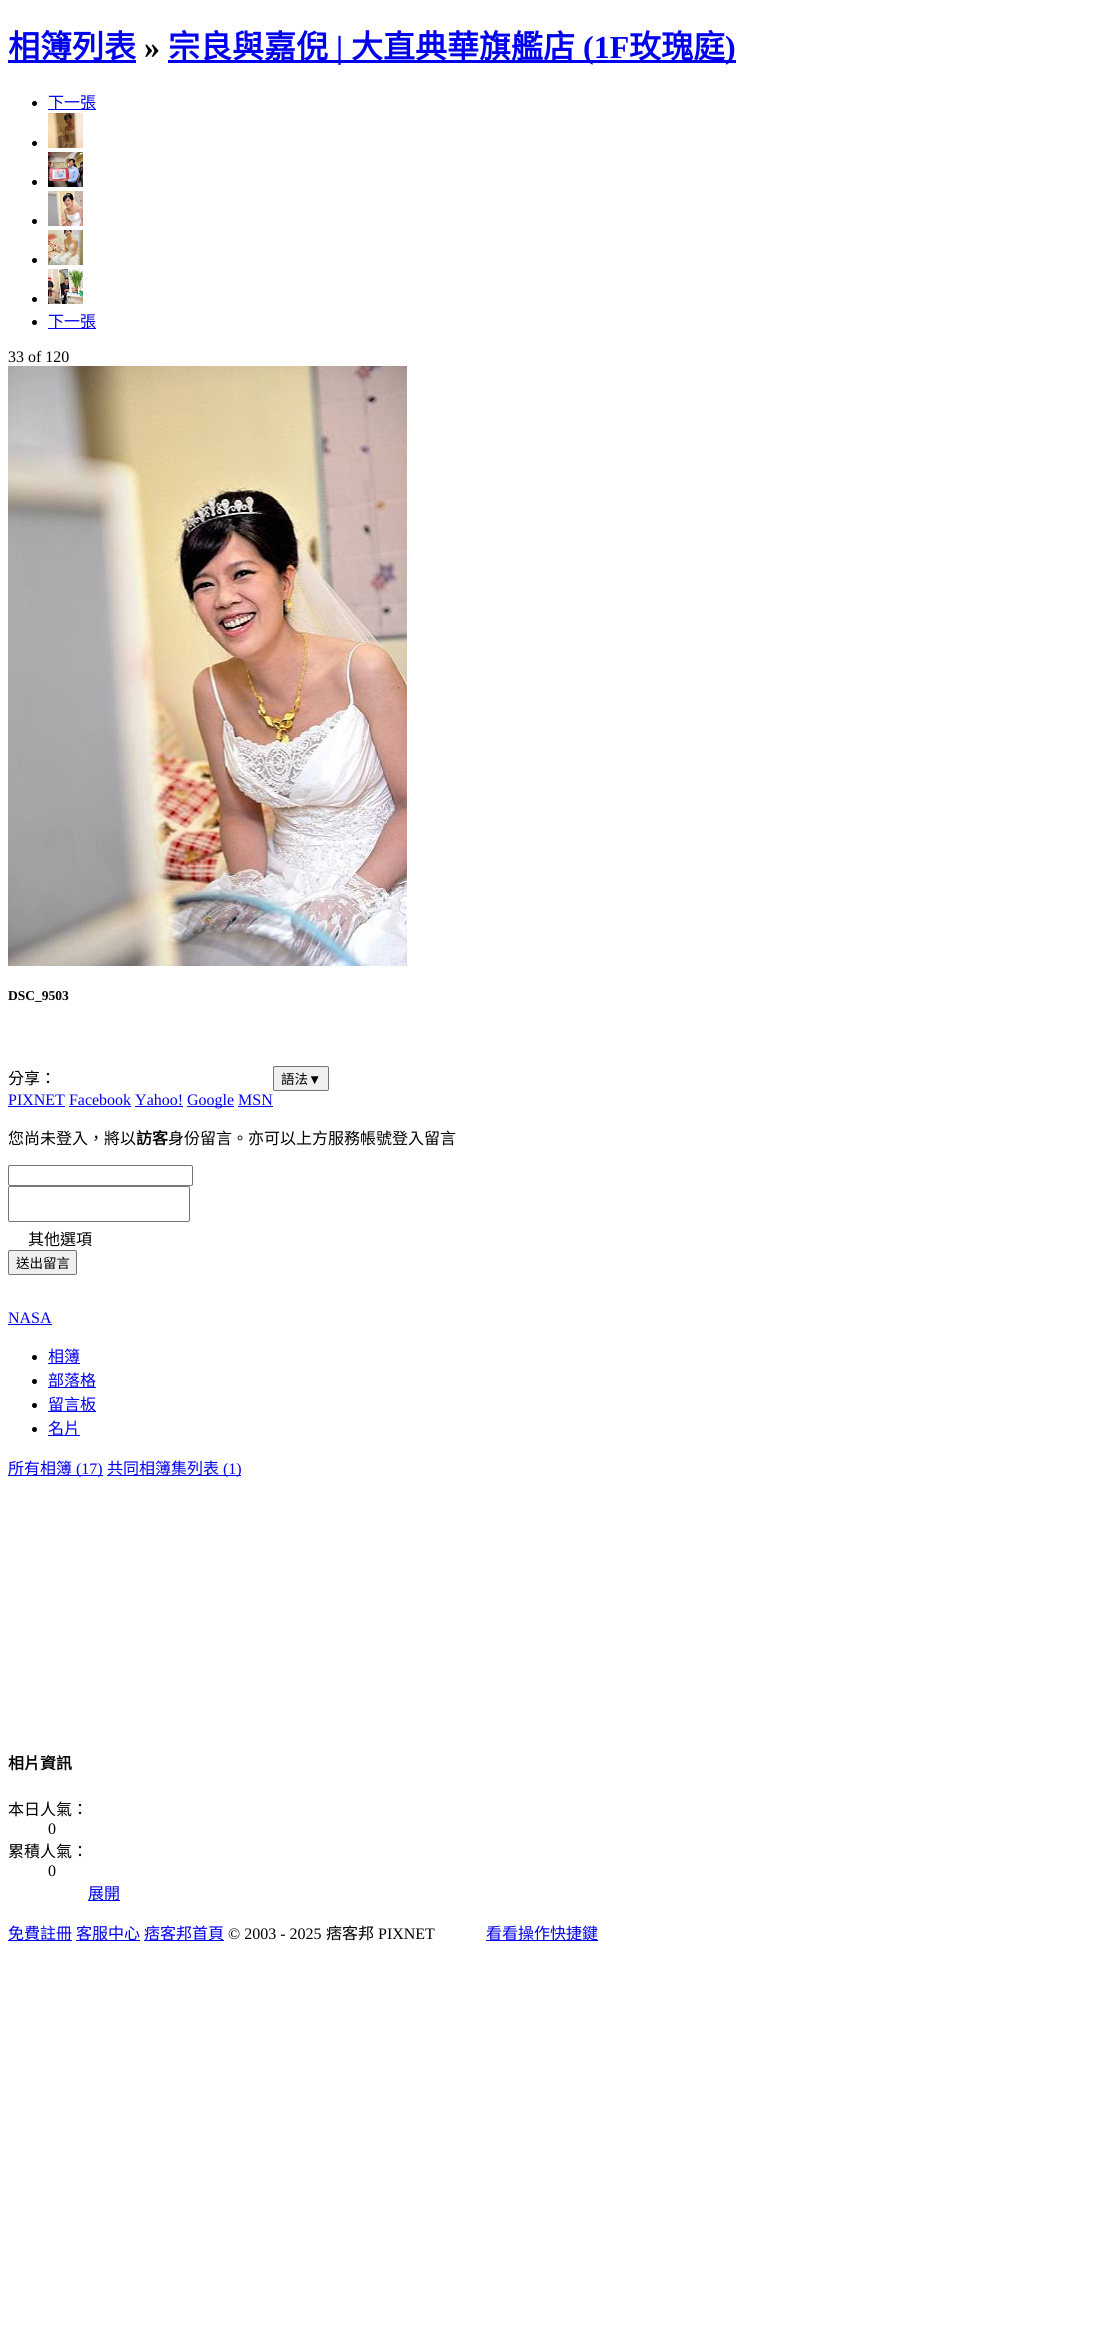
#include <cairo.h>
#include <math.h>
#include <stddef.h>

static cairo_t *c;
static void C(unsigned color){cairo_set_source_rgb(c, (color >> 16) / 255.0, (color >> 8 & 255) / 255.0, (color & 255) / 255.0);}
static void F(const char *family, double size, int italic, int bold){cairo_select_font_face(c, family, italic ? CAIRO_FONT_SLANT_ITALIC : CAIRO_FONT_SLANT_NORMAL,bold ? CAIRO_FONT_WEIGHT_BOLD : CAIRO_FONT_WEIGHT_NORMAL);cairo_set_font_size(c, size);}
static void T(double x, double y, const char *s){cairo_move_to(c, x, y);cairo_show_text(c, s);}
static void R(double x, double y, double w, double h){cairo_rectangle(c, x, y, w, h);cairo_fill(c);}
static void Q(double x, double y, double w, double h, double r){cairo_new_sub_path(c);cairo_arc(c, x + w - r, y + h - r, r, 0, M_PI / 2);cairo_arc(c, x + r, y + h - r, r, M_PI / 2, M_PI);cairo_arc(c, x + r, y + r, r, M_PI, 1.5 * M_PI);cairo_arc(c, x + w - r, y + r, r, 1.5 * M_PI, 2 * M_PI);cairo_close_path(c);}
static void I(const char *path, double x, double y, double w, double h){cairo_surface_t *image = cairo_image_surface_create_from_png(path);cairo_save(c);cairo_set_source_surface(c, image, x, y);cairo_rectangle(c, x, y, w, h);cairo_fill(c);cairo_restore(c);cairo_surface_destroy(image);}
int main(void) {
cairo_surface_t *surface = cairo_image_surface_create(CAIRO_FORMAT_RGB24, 1104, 2340);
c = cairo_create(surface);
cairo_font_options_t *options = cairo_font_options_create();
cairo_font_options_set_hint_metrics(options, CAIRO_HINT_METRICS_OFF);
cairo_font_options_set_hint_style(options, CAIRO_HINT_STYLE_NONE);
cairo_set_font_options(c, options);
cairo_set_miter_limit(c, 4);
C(0xffffff);
cairo_paint(c);
C(0x0000ee);
R(8,60,128,3);
F("Noto Sans CJK TC",32,0,1);
T(8,58,"相簿列表");
F("Liberation Serif",32,0,1);
C(0x000000);
T(144,58,"»");
C(0x0000ee);
R(168,60,568,3);
F("Noto Sans CJK TC",32,0,1);
T(168,58,"宗良與嘉倪");
F("Liberation Serif",32,0,1);
T(336,58,"|");
F("Noto Sans CJK TC",32,0,1);
T(351,58,"大直典華旗艦店");
F("Liberation Serif",32,0,1);
T(583,58,"(1F");
F("Noto Sans CJK TC",32,0,1);
T(629,58,"玫瑰庭");
F("Liberation Serif",32,0,1);
T(725,58,")");
C(0x000000);
cairo_new_path(c);
cairo_arc(c,34.5,103.5,2.5,0,2 * M_PI);
cairo_fill(c);
C(0x0000ee);
R(48,109,48,1);
F("Noto Sans CJK TC",16,0,0);
T(48,108,"下一張");
C(0x000000);
cairo_new_path(c);
cairo_arc(c,34.5,143.5,2.5,0,2 * M_PI);
cairo_fill(c);
I("1.png",48,113,35,35);
cairo_arc(c,34.5,182.5,2.5,0,2 * M_PI);
cairo_fill(c);
I("2.png",48,152,35,35);
cairo_arc(c,34.5,221.5,2.5,0,2 * M_PI);
cairo_fill(c);
I("3.png",48,191,35,35);
cairo_arc(c,34.5,260.5,2.5,0,2 * M_PI);
cairo_fill(c);
I("4.png",48,230,35,35);
cairo_arc(c,34.5,299.5,2.5,0,2 * M_PI);
cairo_fill(c);
I("5.png",48,269,35,35);
cairo_arc(c,34.5,322.5,2.5,0,2 * M_PI);
cairo_fill(c);
C(0x0000ee);
R(48,328,48,1);
T(48,327,"下一張");
F("Liberation Serif",16,0,0);
C(0x000000);
T(8,362,"33 of 120");
I("6.png",8,366,399,600);
F("Liberation Serif",13.5,0,1);
T(8,1000,"DSC_9503");
F("Noto Sans CJK TC",16,0,0);
T(8,1084,"分享：");
C(0xefefef);
Q(273.5,1066.5,55,24,1.5);
cairo_fill_preserve(c);
C(0x767676);
cairo_set_line_width(c,1);
cairo_stroke(c);
F("Noto Sans CJK TC",13.5,0,0);
C(0x000000);
T(281,1084,"語法");
F("Liberation Sans",13.5,0,0);
T(308,1084,"▼");
F("Liberation Serif",16,0,0);
C(0x0000ee);
T(8,1105,"PIXNET Facebook Yahoo!");
R(8,1106,57,1);
R(187,1106,47,1);
T(187,1105,"Google MSN");
R(69,1106,62,1);
R(135,1106,48,1);
R(238,1106,35,1);
F("Noto Sans CJK TC",16,0,0);
C(0x000000);
T(8,1144,"您尚未登入，將以");
F("Noto Sans CJK TC",16,0,1);
T(136,1144,"訪客");
F("Noto Sans CJK TC",16,0,0);
T(168,1144,"身份留言。亦可以上方服務帳號登入留言");
Q(8.5,1165.5,184,20,1.5);
C(0x767676);
cairo_stroke(c);
Q(8.5,1186.5,181,35,1.5);
cairo_stroke(c);
C(0x000000);
T(28,1245,"其他選項");
C(0xefefef);
Q(8.5,1250.5,68,24,1.5);
cairo_fill_preserve(c);
C(0x767676);
cairo_stroke(c);
F("Noto Sans CJK TC",13.5,0,0);
C(0x000000);
T(16,1268,"送出留言");
F("Liberation Serif",16,0,0);
C(0x0000ee);
T(8,1323,"NASA");
R(8,1324,44,1);
C(0x000000);
cairo_new_path(c);
cairo_arc(c,34.5,1357.5,2.5,0,2 * M_PI);
cairo_fill(c);
C(0x0000ee);
R(48,1363,32,1);
F("Noto Sans CJK TC",16,0,0);
T(48,1362,"相簿");
C(0x000000);
cairo_new_path(c);
cairo_arc(c,34.5,1381.5,2.5,0,2 * M_PI);
cairo_fill(c);
C(0x0000ee);
R(48,1387,48,1);
T(48,1386,"部落格");
C(0x000000);
cairo_new_path(c);
cairo_arc(c,34.5,1405.5,2.5,0,2 * M_PI);
cairo_fill(c);
C(0x0000ee);
R(48,1411,48,1);
T(48,1410,"留言板");
C(0x000000);
cairo_new_path(c);
cairo_arc(c,34.5,1429.5,2.5,0,2 * M_PI);
cairo_fill(c);
C(0x0000ee);
R(48,1435,32,1);
T(48,1434,"名片");
R(8,1475,95,1);
T(8,1474,"所有相簿");
F("Liberation Serif",16,0,0);
T(76,1474,"(17)");
R(107,1475,134,1);
F("Noto Sans CJK TC",16,0,0);
T(107,1474,"共同相簿集列表");
F("Liberation Serif",16,0,0);
T(223,1474,"(1)");
F("Noto Sans CJK TC",16,0,1);
C(0x000000);
T(8,1769,"相片資訊");
F("Noto Sans CJK TC",16,0,0);
T(8,1815,"本日人氣：");
F("Liberation Serif",16,0,0);
T(48,1834,"0");
F("Noto Sans CJK TC",16,0,0);
T(8,1857,"累積人氣：");
F("Liberation Serif",16,0,0);
T(48,1876,"0");
C(0x0000ee);
R(88,1900,32,1);
F("Noto Sans CJK TC",16,0,0);
T(88,1899,"展開");
R(8,1940,64,1);
T(8,1939,"免費註冊");
R(76,1940,64,1);
T(76,1939,"客服中心");
R(144,1940,80,1);
T(144,1939,"痞客邦首頁");
F("Liberation Serif",16,0,0);
C(0x000000);
T(228,1939,"© 2003 - 2025");
F("Noto Sans CJK TC",16,0,0);
T(326,1939,"痞客邦");
F("Liberation Serif",16,0,0);
T(378,1939,"PIXNET");
C(0x0000ee);
R(486,1940,112,1);
F("Noto Sans CJK TC",16,0,0);
T(486,1939,"看看操作快捷鍵");
cairo_surface_write_to_png(surface, "o.png");
cairo_font_options_destroy(options);
cairo_destroy(c);
cairo_surface_destroy(surface);
return 0;
}
